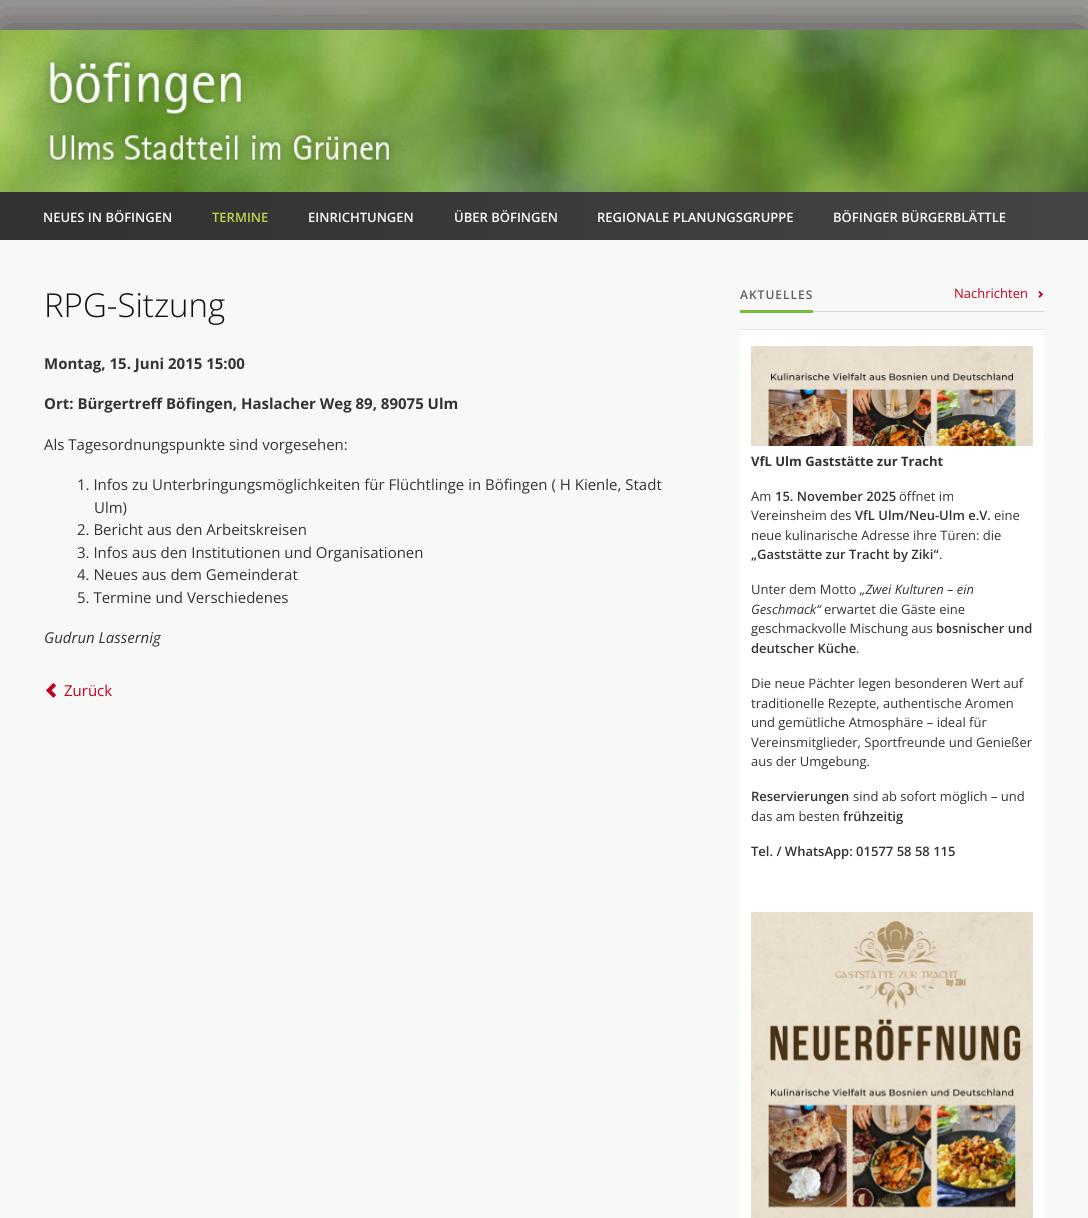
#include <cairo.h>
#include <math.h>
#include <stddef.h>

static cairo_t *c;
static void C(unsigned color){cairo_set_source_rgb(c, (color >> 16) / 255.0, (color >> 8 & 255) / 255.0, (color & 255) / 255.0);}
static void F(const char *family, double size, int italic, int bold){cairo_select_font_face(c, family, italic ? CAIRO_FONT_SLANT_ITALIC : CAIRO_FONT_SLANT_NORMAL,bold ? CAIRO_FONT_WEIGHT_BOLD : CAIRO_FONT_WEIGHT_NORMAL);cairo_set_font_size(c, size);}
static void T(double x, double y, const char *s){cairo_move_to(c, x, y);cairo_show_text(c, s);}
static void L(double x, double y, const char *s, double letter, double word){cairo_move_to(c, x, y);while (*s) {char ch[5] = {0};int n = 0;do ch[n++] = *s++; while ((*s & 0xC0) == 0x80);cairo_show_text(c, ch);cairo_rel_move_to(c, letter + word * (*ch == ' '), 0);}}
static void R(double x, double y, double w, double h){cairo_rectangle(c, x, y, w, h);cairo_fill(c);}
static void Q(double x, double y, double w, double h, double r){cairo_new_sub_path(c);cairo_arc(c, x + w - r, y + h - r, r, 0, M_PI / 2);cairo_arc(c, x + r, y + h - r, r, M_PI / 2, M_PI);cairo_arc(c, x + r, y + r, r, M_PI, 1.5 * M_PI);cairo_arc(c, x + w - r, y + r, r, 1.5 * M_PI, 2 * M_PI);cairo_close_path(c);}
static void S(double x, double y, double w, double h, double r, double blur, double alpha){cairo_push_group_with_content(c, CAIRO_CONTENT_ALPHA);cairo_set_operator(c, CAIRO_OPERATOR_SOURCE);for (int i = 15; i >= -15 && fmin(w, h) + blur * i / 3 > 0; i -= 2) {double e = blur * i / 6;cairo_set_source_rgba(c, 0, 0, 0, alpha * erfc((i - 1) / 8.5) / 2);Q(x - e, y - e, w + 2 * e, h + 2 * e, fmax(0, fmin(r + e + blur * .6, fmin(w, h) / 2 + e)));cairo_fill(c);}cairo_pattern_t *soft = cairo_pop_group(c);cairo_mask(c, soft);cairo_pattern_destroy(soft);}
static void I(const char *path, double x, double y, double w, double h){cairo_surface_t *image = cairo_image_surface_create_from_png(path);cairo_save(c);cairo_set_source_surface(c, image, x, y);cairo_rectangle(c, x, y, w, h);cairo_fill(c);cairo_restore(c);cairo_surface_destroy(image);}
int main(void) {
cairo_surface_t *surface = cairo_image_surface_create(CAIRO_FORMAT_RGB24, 1088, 1218);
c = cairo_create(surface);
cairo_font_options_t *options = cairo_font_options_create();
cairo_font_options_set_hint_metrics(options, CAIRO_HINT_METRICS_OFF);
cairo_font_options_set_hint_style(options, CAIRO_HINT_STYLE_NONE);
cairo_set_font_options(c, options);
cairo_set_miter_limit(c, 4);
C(0xffffff);
cairo_paint(c);
I("1.png",0,0,1088,30);
C(0x535352);
S(0,27,1088,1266,0,25,1);
C(0xf8f8f8);
R(0,240,1088,978);
I("2.png",0,30,1088,162);
I("3.png",0,192,1088,48);
F("Open Sans SemiBold",13,0,0);
C(0xffffff);
T(43,222,"NEUES IN BÖFINGEN");
C(0xc0d649);
T(212,222,"TERMINE");
C(0xffffff);
T(308,222,"EINRICHTUNGEN");
T(454,222,"ÜBER BÖFINGEN");
T(597,222,"REGIONALE PLANUNGSGRUPPE");
T(833,222,"BÖFINGER BÜRGERBLÄTTLE");
F("Open Sans Light",33,0,0);
C(0x111111);
T(44,317,"RPG-Sitzung");
F("Open Sans",15,0,1);
C(0x333333);
T(44,369,"Montag, 15. Juni 2015 15:00");
T(44,409,"Ort: Bürgertreff Böfingen, Haslacher Weg 89, 89075 Ulm");
F("Open Sans",15,0,0);
T(44,450,"Als Tagesordnungspunkte sind vorgesehen:");
T(77,490,"1. Infos zu Unterbringungsmöglichkeiten für Flüchtlinge in Böfingen ( H Kienle, Stadt");
T(94,513,"Ulm)");
T(77,535,"2. Bericht aus den Arbeitskreisen");
T(77,558,"3. Infos aus den Institutionen und Organisationen");
T(77,580,"4. Neues aus dem Gemeinderat");
T(77,603,"5. Termine und Verschiedenes");
F("Open Sans",15,1,0);
T(44,643,"Gudrun Lassernig");
I("4.png",46,683,11,15);
F("Open Sans",15,0,0);
C(0xc1001b);
T(64,696,"Zurück");
C(0xd7d7d7);
R(813,311,231,1);
C(0x75bb3c);
R(740,310,73,3);
F("Open Sans SemiBold",12,0,0);
C(0x5a5d63);
L(740,299,"AKTUELLES",1,0);
F("Open Sans",13,0,0);
C(0xc1001b);
T(954,298,"Nachrichten");
I("5.png",1038,291,5,7);
C(0xffffff);
R(740,330,304,888);
C(0xe5e5e5);
R(740,329,304,1);
I("6.png",751,346,282,100);
F("Open Sans",13,0,1);
C(0x333333);
T(751,466,"VfL Ulm Gaststätte zur Tracht");
F("Open Sans",13,0,0);
T(751,501,"Am");
F("Open Sans SemiBold",13,0,0);
T(775,501,"15. November 2025");
F("Open Sans",13,0,0);
T(899,501,"öffnet im");
T(751,520,"Vereinsheim des");
F("Open Sans SemiBold",13,0,0);
T(855,520,"VfL Ulm/Neu-Ulm e.V.");
F("Open Sans",13,0,0);
T(994,520,"eine");
T(751,540,"neue kulinarische Adresse ihre Türen: die");
F("Open Sans SemiBold",13,0,0);
T(751,559,"„Gaststätte zur Tracht by Ziki“");
F("Open Sans",13,0,0);
T(939,559,".");
T(751,594,"Unter dem Motto");
F("Open Sans",13,1,0);
T(860,594,"„Zwei Kulturen – ein");
T(751,614,"Geschmack“");
F("Open Sans",13,0,0);
T(824,614,"erwartet die Gäste eine");
T(751,633,"geschmackvolle Mischung aus");
F("Open Sans SemiBold",13,0,0);
T(936,633,"bosnischer und");
T(751,653,"deutscher Küche");
F("Open Sans",13,0,0);
T(856,653,".");
T(751,688,"Die neue Pächter legen besonderen Wert auf");
T(751,708,"traditionelle Rezepte, authentische Aromen");
T(751,727,"und gemütliche Atmosphäre – ideal für");
T(751,747,"Vereinsmitglieder, Sportfreunde und Genießer");
T(751,766,"aus der Umgebung.");
F("Open Sans SemiBold",13,0,0);
T(751,801,"Reservierungen");
F("Open Sans",13,0,0);
T(853,801,"sind ab sofort möglich – und");
T(751,821,"das am besten");
F("Open Sans SemiBold",13,0,0);
T(843,821,"frühzeitig");
T(751,856,"Tel. / WhatsApp: 01577 58 58 115");
I("7.png",751,912,282,306);
cairo_surface_write_to_png(surface, "o.png");
cairo_font_options_destroy(options);
cairo_destroy(c);
cairo_surface_destroy(surface);
return 0;
}
